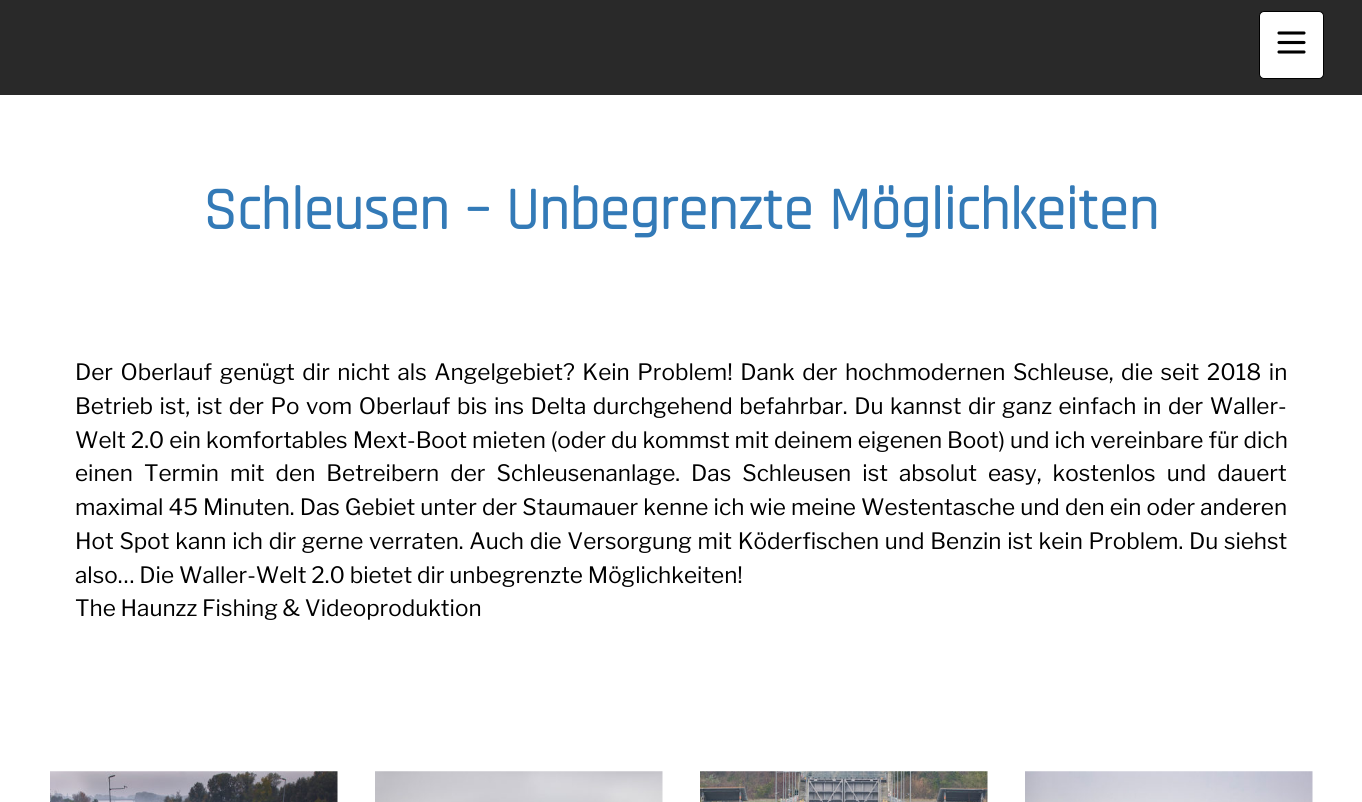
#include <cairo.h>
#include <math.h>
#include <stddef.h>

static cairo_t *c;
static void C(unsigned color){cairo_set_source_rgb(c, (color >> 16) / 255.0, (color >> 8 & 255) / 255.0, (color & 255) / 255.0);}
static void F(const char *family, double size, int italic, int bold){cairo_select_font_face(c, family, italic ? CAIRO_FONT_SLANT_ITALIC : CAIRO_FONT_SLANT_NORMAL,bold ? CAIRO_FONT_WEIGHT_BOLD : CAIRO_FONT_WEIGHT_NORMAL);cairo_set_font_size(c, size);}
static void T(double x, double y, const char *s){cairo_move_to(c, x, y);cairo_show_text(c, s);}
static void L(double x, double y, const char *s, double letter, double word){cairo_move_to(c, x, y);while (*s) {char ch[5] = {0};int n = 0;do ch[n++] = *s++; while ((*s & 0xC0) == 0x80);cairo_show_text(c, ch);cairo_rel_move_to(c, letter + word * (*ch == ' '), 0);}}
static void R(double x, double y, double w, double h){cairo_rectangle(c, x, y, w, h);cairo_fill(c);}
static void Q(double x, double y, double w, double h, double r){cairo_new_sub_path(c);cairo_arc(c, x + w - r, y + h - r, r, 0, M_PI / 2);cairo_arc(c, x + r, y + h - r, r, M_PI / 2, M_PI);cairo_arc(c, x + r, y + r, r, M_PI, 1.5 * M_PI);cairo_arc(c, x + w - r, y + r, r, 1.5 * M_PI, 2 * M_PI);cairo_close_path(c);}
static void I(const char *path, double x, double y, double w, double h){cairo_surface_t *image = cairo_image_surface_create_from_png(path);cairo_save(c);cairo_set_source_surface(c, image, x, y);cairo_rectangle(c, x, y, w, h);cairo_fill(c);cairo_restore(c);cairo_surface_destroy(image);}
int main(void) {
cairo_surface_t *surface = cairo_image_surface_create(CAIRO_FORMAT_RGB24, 1362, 802);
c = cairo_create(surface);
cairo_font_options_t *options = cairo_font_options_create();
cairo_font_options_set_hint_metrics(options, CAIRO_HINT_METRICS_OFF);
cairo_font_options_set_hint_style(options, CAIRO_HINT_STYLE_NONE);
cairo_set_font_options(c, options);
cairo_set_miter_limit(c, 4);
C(0xffffff);
cairo_paint(c);
C(0x292929);
R(0,0,1362,95);
C(0xffffff);
Q(1259.5,11.5,64,67,4.5);
cairo_fill_preserve(c);
C(0x000000);
cairo_set_line_width(c,1);
cairo_stroke(c);
cairo_new_path(c);
cairo_move_to(c,1279,33);
cairo_line_to(c,1304,33);
cairo_move_to(c,1279,42.5);
cairo_line_to(c,1304,42.5);
cairo_move_to(c,1279,52);
cairo_line_to(c,1304,52);
cairo_set_line_width(c,3.1);
cairo_set_line_cap(c,CAIRO_LINE_CAP_ROUND);
cairo_set_line_join(c,CAIRO_LINE_JOIN_ROUND);
cairo_stroke(c);
F("Rajdhani",60,0,1);
C(0x337ab7);
T(203,229,"Schleusen – Unbegrenzte Möglichkeiten");
F("Libre Franklin",22.5,0,0);
C(0x000000);
L(75,380,"Der Oberlauf genügt dir nicht als Angelgebiet? Kein Problem! Dank der hochmodernen Schleuse, die seit 2018 in",0,2.75);
L(75,414,"Betrieb ist, ist der Po vom Oberlauf bis ins Delta durchgehend befahrbar. Du kannst dir ganz einfach in der Waller-",0,1.75);
L(75,448,"Welt 2.0 ein komfortables Mext-Boot mieten (oder du kommst mit deinem eigenen Boot) und ich vereinbare für dich",0,.2);
L(75,481,"einen Termin mit den Betreibern der Schleusenanlage. Das Schleusen ist absolut easy, kostenlos und dauert",0,6.25);
L(75,515,"maximal 45 Minuten. Das Gebiet unter der Staumauer kenne ich wie meine Westentasche und den ein oder anderen",0,.3);
L(75,549,"Hot Spot kann ich dir gerne verraten. Auch die Versorgung mit Köderfischen und Benzin ist kein Problem. Du siehst",0,.9);
T(75,583,"also… Die Waller-Welt 2.0 bietet dir unbegrenzte Möglichkeiten!");
T(75,616,"The Haunzz Fishing & Videoproduktion");
I("1.png",50,771,288,31);
I("2.png",375,771,288,31);
I("3.png",700,771,288,31);
I("4.png",1025,771,288,31);
cairo_surface_write_to_png(surface, "o.png");
cairo_font_options_destroy(options);
cairo_destroy(c);
cairo_surface_destroy(surface);
return 0;
}
